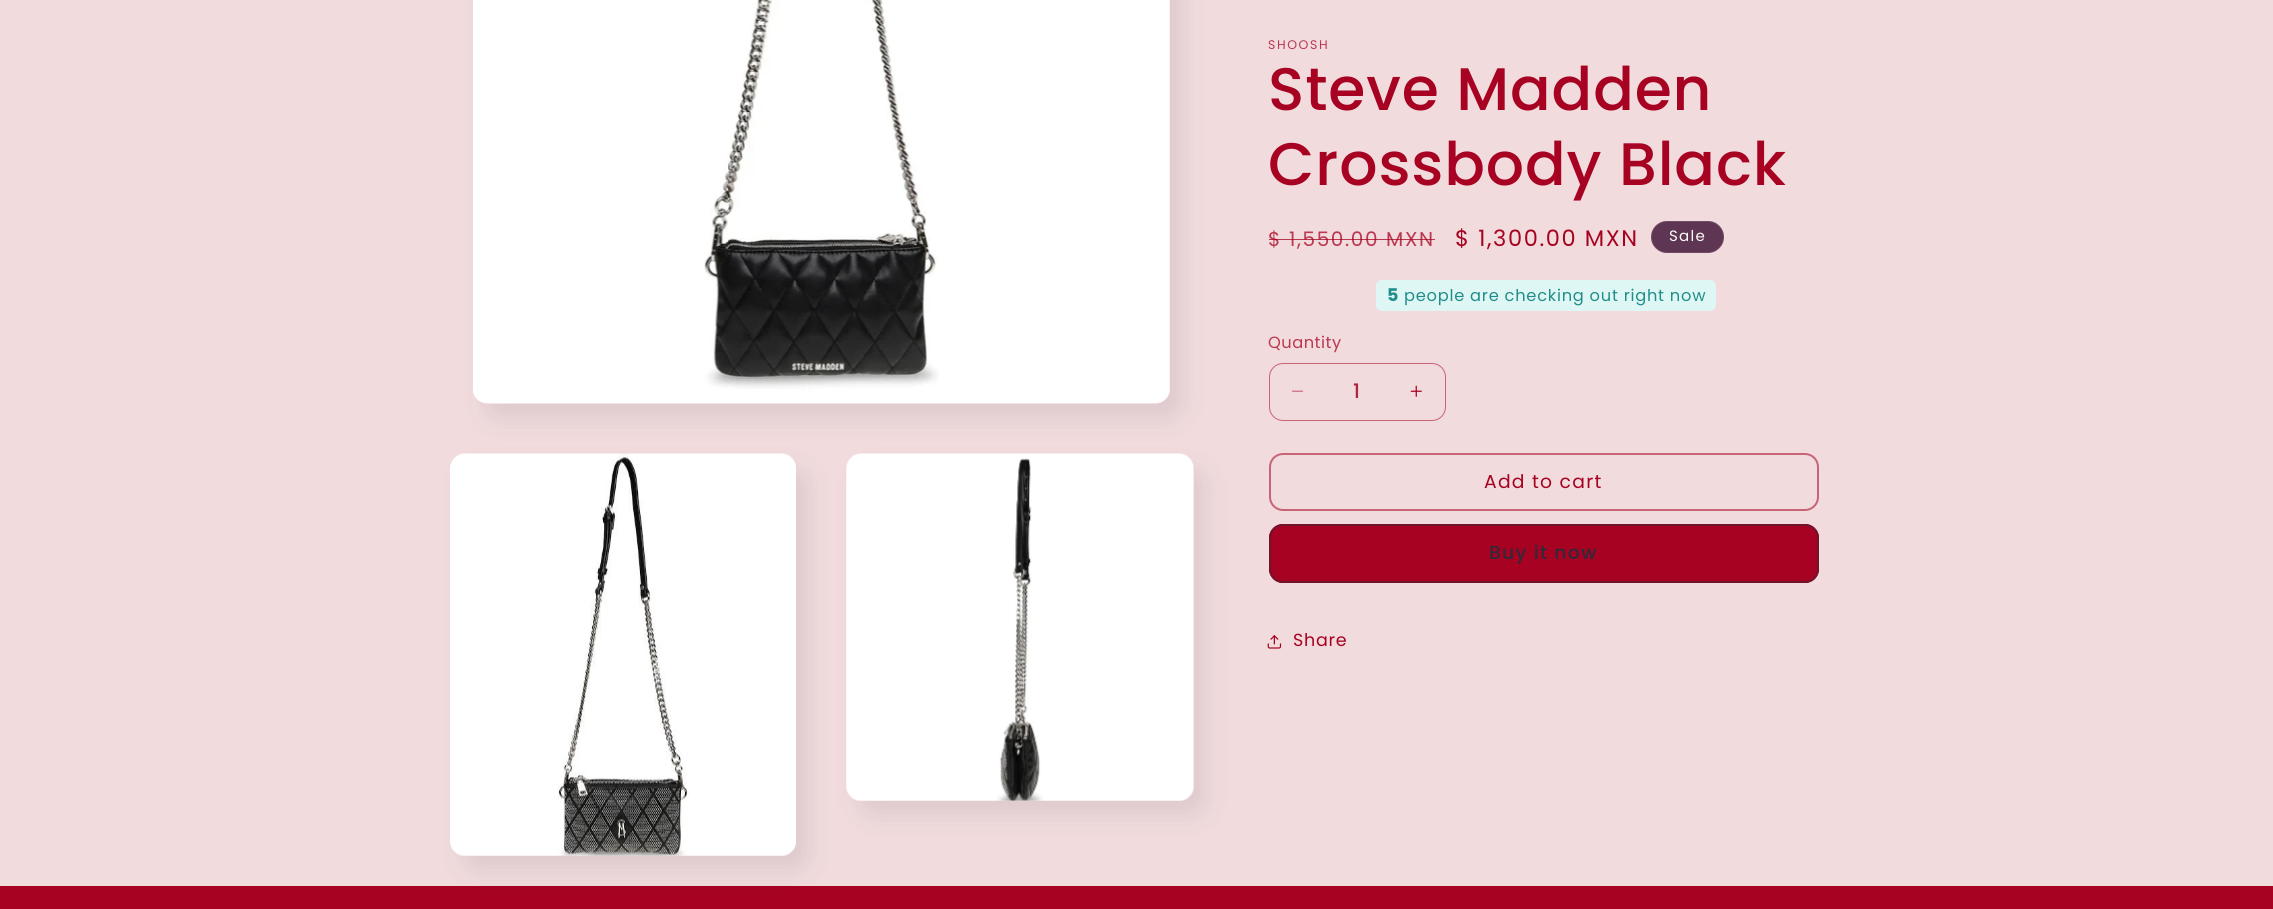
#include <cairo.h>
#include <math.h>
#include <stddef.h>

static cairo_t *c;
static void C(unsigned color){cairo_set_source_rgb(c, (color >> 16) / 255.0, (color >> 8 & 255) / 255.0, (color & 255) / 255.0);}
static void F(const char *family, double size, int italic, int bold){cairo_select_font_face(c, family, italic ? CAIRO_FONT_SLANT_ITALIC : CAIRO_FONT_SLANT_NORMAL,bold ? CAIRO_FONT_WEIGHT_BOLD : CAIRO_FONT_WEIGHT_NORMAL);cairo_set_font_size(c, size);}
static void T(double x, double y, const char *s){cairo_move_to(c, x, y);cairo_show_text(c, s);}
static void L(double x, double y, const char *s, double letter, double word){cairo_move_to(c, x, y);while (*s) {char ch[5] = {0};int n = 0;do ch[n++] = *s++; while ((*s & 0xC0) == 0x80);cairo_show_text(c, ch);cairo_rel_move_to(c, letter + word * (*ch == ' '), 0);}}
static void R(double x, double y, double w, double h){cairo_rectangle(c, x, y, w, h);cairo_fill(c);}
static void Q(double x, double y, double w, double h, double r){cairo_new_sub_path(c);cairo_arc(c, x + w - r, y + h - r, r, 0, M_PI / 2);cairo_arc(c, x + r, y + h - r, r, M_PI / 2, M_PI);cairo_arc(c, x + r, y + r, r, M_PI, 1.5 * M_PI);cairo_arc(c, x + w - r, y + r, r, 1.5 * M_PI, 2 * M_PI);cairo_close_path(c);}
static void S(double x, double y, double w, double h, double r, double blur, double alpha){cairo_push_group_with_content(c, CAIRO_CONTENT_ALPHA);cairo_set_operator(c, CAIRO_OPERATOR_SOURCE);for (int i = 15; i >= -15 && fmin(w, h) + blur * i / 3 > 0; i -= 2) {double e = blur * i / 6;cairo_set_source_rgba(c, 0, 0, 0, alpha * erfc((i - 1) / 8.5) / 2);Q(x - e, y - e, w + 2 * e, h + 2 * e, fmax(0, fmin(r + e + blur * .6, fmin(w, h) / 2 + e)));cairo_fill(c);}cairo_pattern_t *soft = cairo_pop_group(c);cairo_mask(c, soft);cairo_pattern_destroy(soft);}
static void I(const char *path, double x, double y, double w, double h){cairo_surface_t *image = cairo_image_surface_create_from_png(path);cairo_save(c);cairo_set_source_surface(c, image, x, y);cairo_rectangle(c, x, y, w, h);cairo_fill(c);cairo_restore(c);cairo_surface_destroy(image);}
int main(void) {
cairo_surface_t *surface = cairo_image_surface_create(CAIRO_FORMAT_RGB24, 2273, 909);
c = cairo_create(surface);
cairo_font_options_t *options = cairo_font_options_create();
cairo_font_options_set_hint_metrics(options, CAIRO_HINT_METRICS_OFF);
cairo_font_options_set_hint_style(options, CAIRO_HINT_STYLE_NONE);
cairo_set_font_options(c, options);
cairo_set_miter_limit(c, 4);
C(0xa70221);
cairo_paint(c);
C(0xf1dbdd);
R(0,0,2273,886);
C(0x2e2a39);
S(485,-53,698,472,15,12.5,.1);
C(0xf1dbdd);
Q(473,-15,697,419,15);
cairo_fill(c);
I("1.png",473,0,697,404);
C(0x2e2a39);
S(463,469,346,402,15,12.5,.1);
C(0xf1dbdd);
Q(450,454,346,402,15);
cairo_fill(c);
I("2.png",450,453,346,403);
C(0x2e2a39);
S(859,469,347,347,15,12.5,.1);
C(0xf1dbdd);
Q(846,454,348,347,15);
cairo_fill(c);
I("3.png",846,453,348,348);
F("Poppins",12.5,0,0);
C(0xba3850);
L(1268,49,"SHOOSH",1.6,0);
F("Poppins Medium",60,0,0);
C(0xa70221);
L(1268,110,"Steve Madden",.9,0);
L(1268,185,"Crossbody Black",.9,0);
F("Poppins",20,0,0);
C(0xba3850);
L(1268,246,"$ 1,550.00 MXN",1.6,0);
cairo_set_source_rgba(c,0.655,0.008,0.129,0.75);
R(1269,239,166,1);
F("Poppins",22.5,0,0);
C(0xa70221);
L(1455,246,"$ 1,300.00 MXN",1.6,0);
C(0x5e3653);
Q(1651,221,73,32,16);
cairo_fill(c);
Q(1651.5,221.5,72,31,15.5);
cairo_set_source_rgba(c,0.992,0.984,0.969,0.1);
cairo_set_line_width(c,1);
cairo_stroke(c);
F("Poppins",15,0,0);
C(0xfdfbf7);
L(1669,241,"Sale",1.25,0);
C(0xdff7f4);
Q(1376,280,340,31,6);
cairo_fill(c);
F("Poppins",17.5,0,1);
C(0x218d8b);
L(1387,301,"5",.75,0);
F("Poppins",16.25,0,0);
L(1404,301,"people are checking out right now",.75,0);
C(0xba3850);
L(1268,348,"Quantity",.5,0);
I("4.png",1292,390,11,2);
I("5.png",1410,385,12,12);
Q(1269.5,363.5,176,57,13.5);
C(0xc86476);
cairo_stroke(c);
F("Poppins Medium",20,0,0);
C(0xb2233d);
T(1353,398,"1");
Q(1270,454,548,56,13);
C(0xc86476);
cairo_set_line_width(c,2);
cairo_stroke(c);
F("Poppins",18.75,0,0);
C(0xa70221);
L(1484,488,"Add to cart",1.25,0);
Q(1269,524,550,59,14);
cairo_fill(c);
Q(1269.5,524.5,549,58,13.5);
cairo_set_line_width(c,1);
cairo_stroke(c);
Q(1270,525,548,57,13);
cairo_set_source_rgba(c,0.18,0.165,0.224,0.45);
cairo_set_line_width(c,2);
cairo_stroke(c);
F("Poppins Medium",18.75,0,0);
C(0x2e2a39);
L(1489,559,"Buy it now",1.25,0);
I("6.png",1267,635,15,14);
F("Poppins",17.5,0,0);
C(0xa70221);
L(1293,646,"Share",.75,0);
cairo_surface_write_to_png(surface, "o.png");
cairo_font_options_destroy(options);
cairo_destroy(c);
cairo_surface_destroy(surface);
return 0;
}
